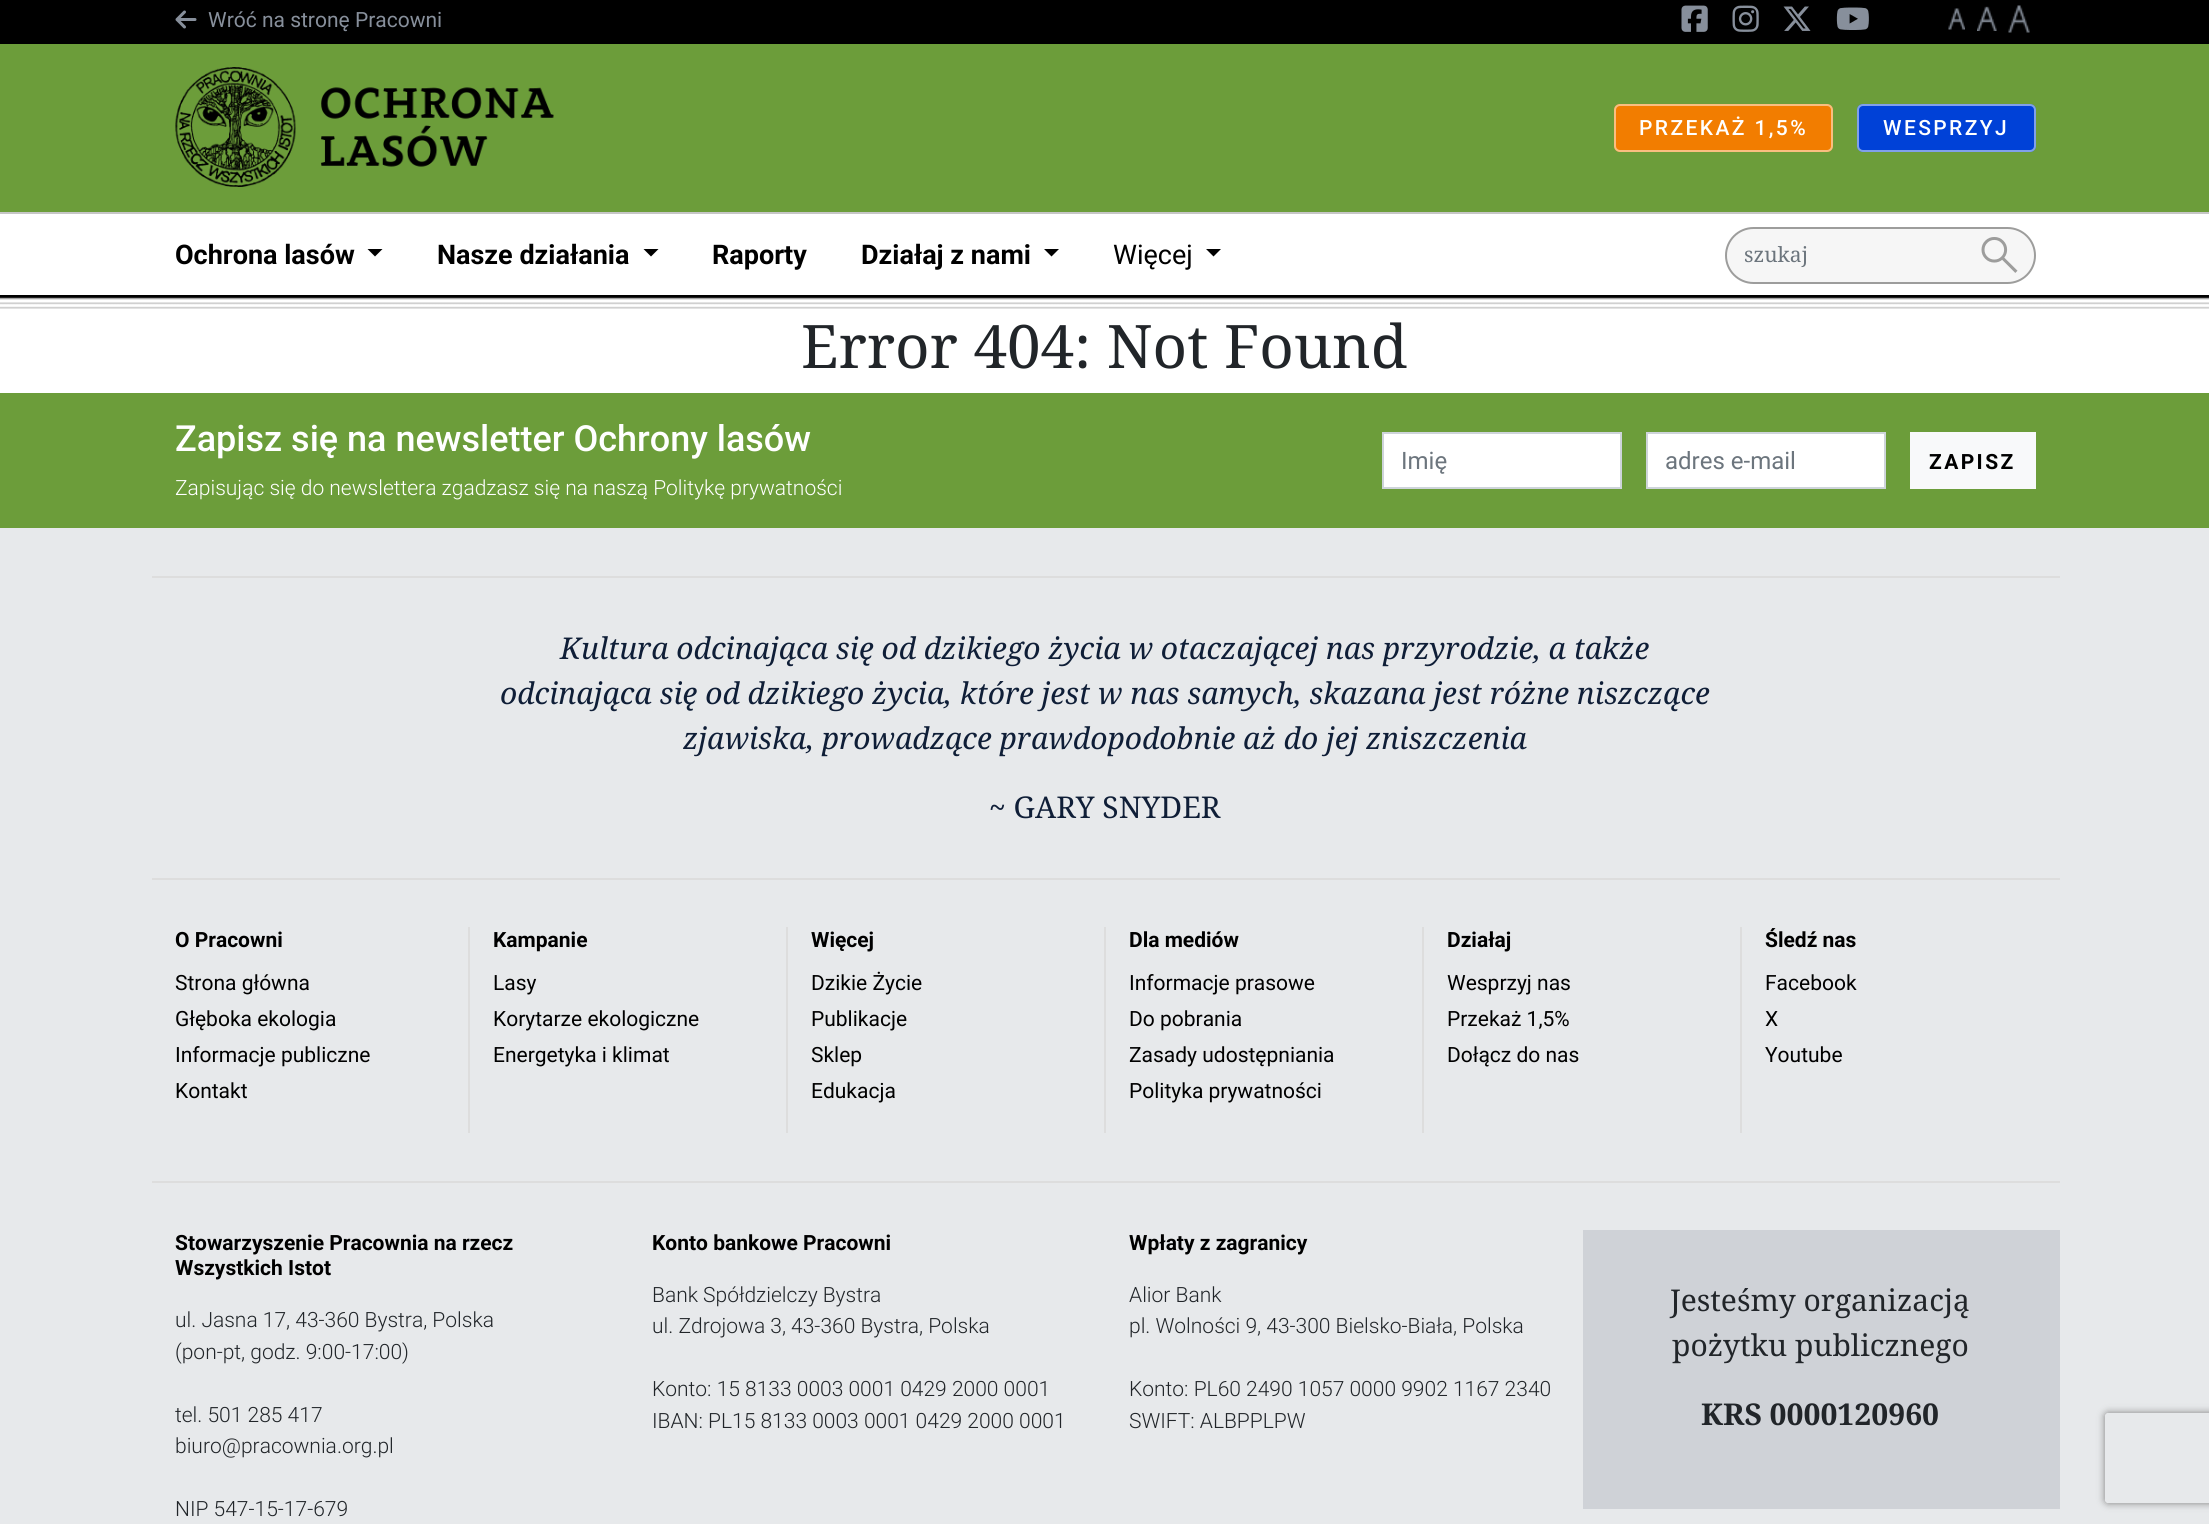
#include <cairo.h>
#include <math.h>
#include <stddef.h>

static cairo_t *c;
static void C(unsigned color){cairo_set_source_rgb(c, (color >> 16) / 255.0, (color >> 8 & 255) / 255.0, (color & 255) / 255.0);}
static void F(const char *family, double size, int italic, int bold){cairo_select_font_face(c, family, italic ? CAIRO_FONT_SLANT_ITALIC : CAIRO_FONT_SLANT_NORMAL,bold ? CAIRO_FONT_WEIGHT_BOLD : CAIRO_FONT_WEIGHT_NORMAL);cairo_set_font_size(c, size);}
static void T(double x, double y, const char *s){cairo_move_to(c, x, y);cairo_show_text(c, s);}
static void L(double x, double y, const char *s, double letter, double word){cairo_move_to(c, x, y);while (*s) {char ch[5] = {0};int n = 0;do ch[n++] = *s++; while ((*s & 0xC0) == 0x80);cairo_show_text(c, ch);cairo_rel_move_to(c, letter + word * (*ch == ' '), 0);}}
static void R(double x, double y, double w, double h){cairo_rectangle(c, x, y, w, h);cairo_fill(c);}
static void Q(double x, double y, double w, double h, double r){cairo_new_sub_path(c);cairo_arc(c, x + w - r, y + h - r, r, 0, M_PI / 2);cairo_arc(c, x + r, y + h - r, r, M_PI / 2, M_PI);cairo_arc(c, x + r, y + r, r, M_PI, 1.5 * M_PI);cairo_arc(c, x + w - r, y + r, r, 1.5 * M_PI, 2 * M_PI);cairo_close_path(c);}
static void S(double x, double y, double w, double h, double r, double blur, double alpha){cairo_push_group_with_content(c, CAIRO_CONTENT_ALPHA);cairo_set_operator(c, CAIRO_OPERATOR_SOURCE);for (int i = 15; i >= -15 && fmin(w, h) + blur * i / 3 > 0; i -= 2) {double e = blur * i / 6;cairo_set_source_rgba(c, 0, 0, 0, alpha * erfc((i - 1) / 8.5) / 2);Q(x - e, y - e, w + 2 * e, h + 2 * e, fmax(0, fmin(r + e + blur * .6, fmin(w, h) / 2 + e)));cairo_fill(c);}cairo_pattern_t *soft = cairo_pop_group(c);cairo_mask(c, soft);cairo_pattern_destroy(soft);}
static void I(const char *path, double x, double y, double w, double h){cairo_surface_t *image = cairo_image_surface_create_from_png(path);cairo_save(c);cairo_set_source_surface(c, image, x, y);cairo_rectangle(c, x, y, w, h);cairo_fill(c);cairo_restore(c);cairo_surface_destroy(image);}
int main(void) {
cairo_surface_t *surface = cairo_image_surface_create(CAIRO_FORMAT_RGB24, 2209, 1524);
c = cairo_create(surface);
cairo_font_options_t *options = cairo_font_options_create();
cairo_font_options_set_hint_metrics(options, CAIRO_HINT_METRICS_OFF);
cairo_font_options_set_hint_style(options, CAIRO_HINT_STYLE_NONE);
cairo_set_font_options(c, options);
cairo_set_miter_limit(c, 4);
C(0xffffff);
cairo_paint(c);
I("1.png",0,295,2209,14);
C(0x000000);
R(0,0,2209,44);
I("2.png",175,10,22,19);
F("Roboto",21,0,0);
C(0x878f9b);
T(208,27,"Wróć na stronę Pracowni");
I("3.png",1681,5,27,27);
I("4.png",1732,5,27,27);
I("5.png",1783,6,28,25);
I("6.png",1836,7,33,23);
I("7.png",1948,8,17,22);
I("8.png",1977,6,20,25);
I("9.png",2008,5,22,28);
C(0x6c9d3a);
R(0,44,2209,168);
C(0xc6c6c6);
R(0,212,2209,2);
I("10.png",175,67,379,120);
C(0xf27d00);
Q(1614,104,219,48,6);
cairo_fill(c);
Q(1615,105,217,46,5);
cairo_set_source_rgba(c,1,1,1,0.5);
cairo_stroke(c);
F("Roboto Medium",21,0,0);
C(0xffffff);
L(1639,135,"PRZEKAŻ 1,5%",2.4,0);
C(0x0041d7);
Q(1857,104,179,48,6);
cairo_fill(c);
Q(1858,105,177,46,5);
cairo_set_source_rgba(c,1,1,1,0.5);
cairo_stroke(c);
C(0xffffff);
L(1883,135,"WESPRZYJ",2.4,0);
F("Roboto",27,0,1);
C(0x000000);
T(175,264,"Ochrona lasów");
cairo_new_path(c);
cairo_move_to(c,367.5,249);
cairo_line_to(c,382.5,249);
cairo_line_to(c,375,256.5);
cairo_close_path(c);
cairo_fill(c);
T(437,264,"Nasze działania");
cairo_new_path(c);
cairo_move_to(c,643.5,249);
cairo_line_to(c,658.5,249);
cairo_line_to(c,651,256.5);
cairo_close_path(c);
cairo_fill(c);
T(712,264,"Raporty");
T(861,264,"Działaj z nami");
cairo_new_path(c);
cairo_move_to(c,1044,249);
cairo_line_to(c,1059,249);
cairo_line_to(c,1051.5,256.5);
cairo_close_path(c);
cairo_fill(c);
F("Roboto",27,0,0);
T(1113,264,"Więcej");
cairo_new_path(c);
cairo_move_to(c,1206,249);
cairo_line_to(c,1221,249);
cairo_line_to(c,1213.5,256.5);
cairo_close_path(c);
cairo_fill(c);
C(0xf6f6f6);
Q(1726,228,309,55,27.5);
cairo_fill_preserve(c);
C(0x9d9d9c);
cairo_stroke(c);
F("Noto Serif",21,0,0);
C(0x6c757d);
T(1744,262,"szukaj");
I("11.png",1981,237,37,36);
F("Noto Serif",60,0,0);
C(0x212529);
T(801,368,"Error 404: Not Found");
C(0xe7e9eb);
R(0,528,2209,996);
C(0x6c9d3a);
R(0,393,2209,135);
F("Roboto Medium",36,0,0);
C(0xffffff);
T(175,451,"Zapisz się na newsletter Ochrony lasów");
F("Roboto Light",21,0,0);
T(175,495,"Zapisując się do newslettera zgadzasz się na naszą Politykę prywatności");
cairo_rectangle(c,1383,433,238,55);
cairo_fill_preserve(c);
C(0xced4da);
cairo_stroke(c);
F("Roboto",24,0,0);
C(0x6c757d);
T(1401,469,"Imię");
C(0xffffff);
cairo_rectangle(c,1647,433,238,55);
cairo_fill_preserve(c);
C(0xced4da);
cairo_stroke(c);
C(0x6c757d);
T(1665,469,"adres e-mail");
C(0xf8f9fa);
R(1910,432,126,57);
F("Roboto",21,0,1);
C(0x000000);
L(1929,469,"ZAPISZ",2.4,0);
C(0xdddddd);
R(152,576,1908,2);
F("Noto Serif",30,1,0);
C(0x0f1e37);
T(560,659,"Kultura odcinająca się od dzikiego życia w otaczającej nas przyrodzie, a także");
T(500,704,"odcinająca się od dzikiego życia, które jest w nas samych, skazana jest różne niszczące");
T(683,749,"zjawiska, prowadzące prawdopodobnie aż do jej zniszczenia");
F("Noto Serif",30,0,0);
T(989,818,"~ GARY SNYDER");
C(0xdddddd);
R(152,878,1908,2);
R(468,927,2,206);
F("Roboto",21,0,1);
C(0x000000);
T(175,947,"O Pracowni");
F("Roboto",21,0,0);
T(175,990,"Strona główna");
T(175,1026,"Głęboka ekologia");
T(175,1062,"Informacje publiczne");
T(175,1098,"Kontakt");
C(0xdddddd);
R(786,927,2,206);
F("Roboto",21,0,1);
C(0x000000);
T(493,947,"Kampanie");
F("Roboto",21,0,0);
T(493,990,"Lasy");
T(493,1026,"Korytarze ekologiczne");
T(493,1062,"Energetyka i klimat");
C(0xdddddd);
R(1104,927,2,206);
F("Roboto",21,0,1);
C(0x000000);
T(811,947,"Więcej");
F("Roboto",21,0,0);
T(811,990,"Dzikie Życie");
T(811,1026,"Publikacje");
T(811,1062,"Sklep");
T(811,1098,"Edukacja");
C(0xdddddd);
R(1422,927,2,206);
F("Roboto",21,0,1);
C(0x000000);
T(1129,947,"Dla mediów");
F("Roboto",21,0,0);
T(1129,990,"Informacje prasowe");
T(1129,1026,"Do pobrania");
T(1129,1062,"Zasady udostępniania");
T(1129,1098,"Polityka prywatności");
C(0xdddddd);
R(1740,927,2,206);
F("Roboto",21,0,1);
C(0x000000);
T(1447,947,"Działaj");
F("Roboto",21,0,0);
T(1447,990,"Wesprzyj nas");
T(1447,1026,"Przekaż 1,5%");
T(1447,1062,"Dołącz do nas");
F("Roboto",21,0,1);
T(1765,947,"Śledź nas");
F("Roboto",21,0,0);
T(1765,990,"Facebook");
T(1765,1026,"X");
T(1765,1062,"Youtube");
C(0xdddddd);
R(152,1181,1908,2);
F("Roboto",21,0,1);
C(0x000000);
T(175,1250,"Stowarzyszenie Pracownia na rzecz");
T(175,1275,"Wszystkich Istot");
F("Roboto Light",21,0,0);
C(0x212529);
T(175,1327,"ul. Jasna 17, 43-360 Bystra, Polska");
T(175,1359,"(pon-pt, godz. 9:00-17:00)");
T(175,1422,"tel. 501 285 417");
T(175,1453,"biuro@pracownia.org.pl");
T(175,1516,"NIP 547-15-17-679");
F("Roboto",21,0,1);
C(0x000000);
T(652,1250,"Konto bankowe Pracowni");
F("Roboto Light",21,0,0);
C(0x212529);
T(652,1302,"Bank Spółdzielczy Bystra");
T(652,1333,"ul. Zdrojowa 3, 43-360 Bystra, Polska");
T(652,1396,"Konto: 15 8133 0003 0001 0429 2000 0001");
T(652,1428,"IBAN: PL15 8133 0003 0001 0429 2000 0001");
F("Roboto",21,0,1);
C(0x000000);
T(1129,1250,"Wpłaty z zagranicy");
F("Roboto Light",21,0,0);
C(0x212529);
T(1129,1302,"Alior Bank");
T(1129,1333,"pl. Wolności 9, 43-300 Bielsko-Biała, Polska");
T(1129,1396,"Konto: PL60 2490 1057 0000 9902 1167 2340");
T(1129,1428,"SWIFT: ALBPPLPW");
C(0xcfd2d7);
R(1583,1230,477,279);
F("Noto Serif",30,0,0);
C(0x212529);
T(1670,1311,"Jesteśmy organizacją");
T(1672,1356,"pożytku publicznego");
F("Noto Serif",30,0,1);
T(1701,1425,"KRS 0000120960");
cairo_save(c);
cairo_set_fill_rule(c,CAIRO_FILL_RULE_EVEN_ODD);
cairo_new_path(c);
cairo_move_to(c,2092,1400);
cairo_line_to(c,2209,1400);
cairo_line_to(c,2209,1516);
cairo_line_to(c,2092,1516);
cairo_close_path(c);
cairo_move_to(c,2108,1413);
cairo_line_to(c,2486,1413);
cairo_curve_to(c,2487.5,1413,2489,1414.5,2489,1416);
cairo_line_to(c,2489,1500);
cairo_curve_to(c,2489,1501.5,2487.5,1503,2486,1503);
cairo_line_to(c,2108,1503);
cairo_curve_to(c,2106.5,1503,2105,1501.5,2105,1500);
cairo_line_to(c,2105,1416);
cairo_curve_to(c,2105,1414.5,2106.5,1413,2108,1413);
cairo_close_path(c);
cairo_clip(c);
C(0x808080);
S(2105,1413,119,90,3,4,1);
cairo_restore(c);
cairo_surface_write_to_png(surface, "o.png");
cairo_font_options_destroy(options);
cairo_destroy(c);
cairo_surface_destroy(surface);
return 0;
}
